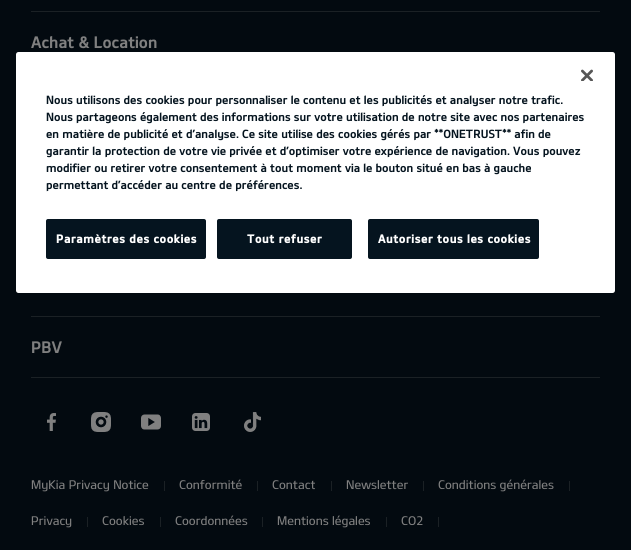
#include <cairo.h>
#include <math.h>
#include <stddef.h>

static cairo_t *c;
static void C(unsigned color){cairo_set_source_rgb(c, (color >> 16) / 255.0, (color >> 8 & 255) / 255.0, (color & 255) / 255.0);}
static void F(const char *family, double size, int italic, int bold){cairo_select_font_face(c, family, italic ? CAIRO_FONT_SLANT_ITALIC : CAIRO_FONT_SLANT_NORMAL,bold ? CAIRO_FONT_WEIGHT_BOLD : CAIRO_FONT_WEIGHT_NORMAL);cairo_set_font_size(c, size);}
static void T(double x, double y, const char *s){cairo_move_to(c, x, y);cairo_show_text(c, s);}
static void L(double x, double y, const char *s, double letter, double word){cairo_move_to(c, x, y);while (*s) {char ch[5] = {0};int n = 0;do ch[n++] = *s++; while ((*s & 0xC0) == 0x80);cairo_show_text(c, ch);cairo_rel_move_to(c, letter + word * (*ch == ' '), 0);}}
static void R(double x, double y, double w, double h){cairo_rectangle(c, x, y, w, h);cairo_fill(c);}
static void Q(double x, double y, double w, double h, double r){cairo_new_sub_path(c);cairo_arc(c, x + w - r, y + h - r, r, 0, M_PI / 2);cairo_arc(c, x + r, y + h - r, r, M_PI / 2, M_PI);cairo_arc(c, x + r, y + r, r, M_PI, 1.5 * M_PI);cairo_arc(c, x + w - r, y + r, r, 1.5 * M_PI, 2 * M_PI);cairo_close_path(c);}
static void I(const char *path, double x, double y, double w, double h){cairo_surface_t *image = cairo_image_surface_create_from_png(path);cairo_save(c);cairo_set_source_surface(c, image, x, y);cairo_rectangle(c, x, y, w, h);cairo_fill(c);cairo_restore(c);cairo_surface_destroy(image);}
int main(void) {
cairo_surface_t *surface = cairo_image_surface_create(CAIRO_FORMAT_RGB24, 631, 550);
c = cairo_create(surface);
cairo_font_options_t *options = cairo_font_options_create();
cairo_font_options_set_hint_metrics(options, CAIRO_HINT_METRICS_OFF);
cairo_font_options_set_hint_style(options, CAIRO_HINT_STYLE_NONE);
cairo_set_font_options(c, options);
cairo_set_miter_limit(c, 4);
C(0x030a10);
cairo_paint(c);
C(0x1b2125);
R(31,11,569,1);
F("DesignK",16,0,0);
C(0x808080);
T(31,48,"Achat & Location");
C(0x1b2125);
R(31,316,569,1);
R(31,377,569,1);
C(0x808080);
T(31,353,"PBV");
I("1.png",47,413,9,18);
I("2.png",91,412,20,20);
I("3.png",141,414,20,16);
I("4.png",192,413,18,18);
I("5.png",244,412,17,20);
F("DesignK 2",12,0,0);
T(31,489,"MyKia Privacy Notice");
C(0x1b2125);
R(164,481,1,10);
C(0x808080);
T(179,489,"Conformité");
C(0x1b2125);
R(257,481,1,10);
C(0x808080);
T(272,489,"Contact");
C(0x1b2125);
R(331,481,1,10);
C(0x808080);
T(346,489,"Newsletter");
C(0x1b2125);
R(423,481,1,10);
C(0x808080);
T(438,489,"Conditions générales");
C(0x1b2125);
R(569,481,1,10);
C(0x808080);
T(31,525,"Privacy");
C(0x1b2125);
R(87,517,1,10);
C(0x808080);
T(102,525,"Cookies");
C(0x1b2125);
R(160,517,1,10);
C(0x808080);
T(175,525,"Coordonnées");
C(0x1b2125);
R(262,517,1,10);
C(0x808080);
T(277,525,"Mentions légales");
C(0x1b2125);
R(386,517,1,10);
C(0x808080);
T(401,525,"CO2");
C(0x1b2125);
R(438,517,1,10);
C(0xffffff);
Q(16,52,599,241,2.5);
cairo_fill(c);
I("6.png",581,69,12,12);
F("DesignK",11.4,0,0);
C(0x05141f);
T(46,104,"Nous utilisons des cookies pour personnaliser le contenu et les publicités et analyser notre trafic.");
T(46,121,"Nous partageons également des informations sur votre utilisation de notre site avec nos partenaires");
T(46,138,"en matière de publicité et d’analyse. Ce site utilise des cookies gérés par **ONETRUST** afin de");
T(46,155,"garantir la protection de votre vie privée et d’optimiser votre expérience de navigation. Vous pouvez");
T(46,172,"modifier ou retirer votre consentement à tout moment via le bouton situé en bas à gauche");
T(46,189,"permettant d’accéder au centre de préférences.");
Q(46,219,160,40,2);
cairo_fill(c);
F("DesignK",11.4,0,1);
C(0xffffff);
L(56,243,"Paramètres des cookies",.6,0);
C(0x05141f);
Q(217,219,135,40,2);
cairo_fill(c);
C(0xffffff);
L(247,243,"Tout refuser",.6,0);
C(0x05141f);
Q(368,219,171,40,2);
cairo_fill(c);
C(0xffffff);
L(378,243,"Autoriser tous les cookies",.6,0);
cairo_surface_write_to_png(surface, "o.png");
cairo_font_options_destroy(options);
cairo_destroy(c);
cairo_surface_destroy(surface);
return 0;
}
